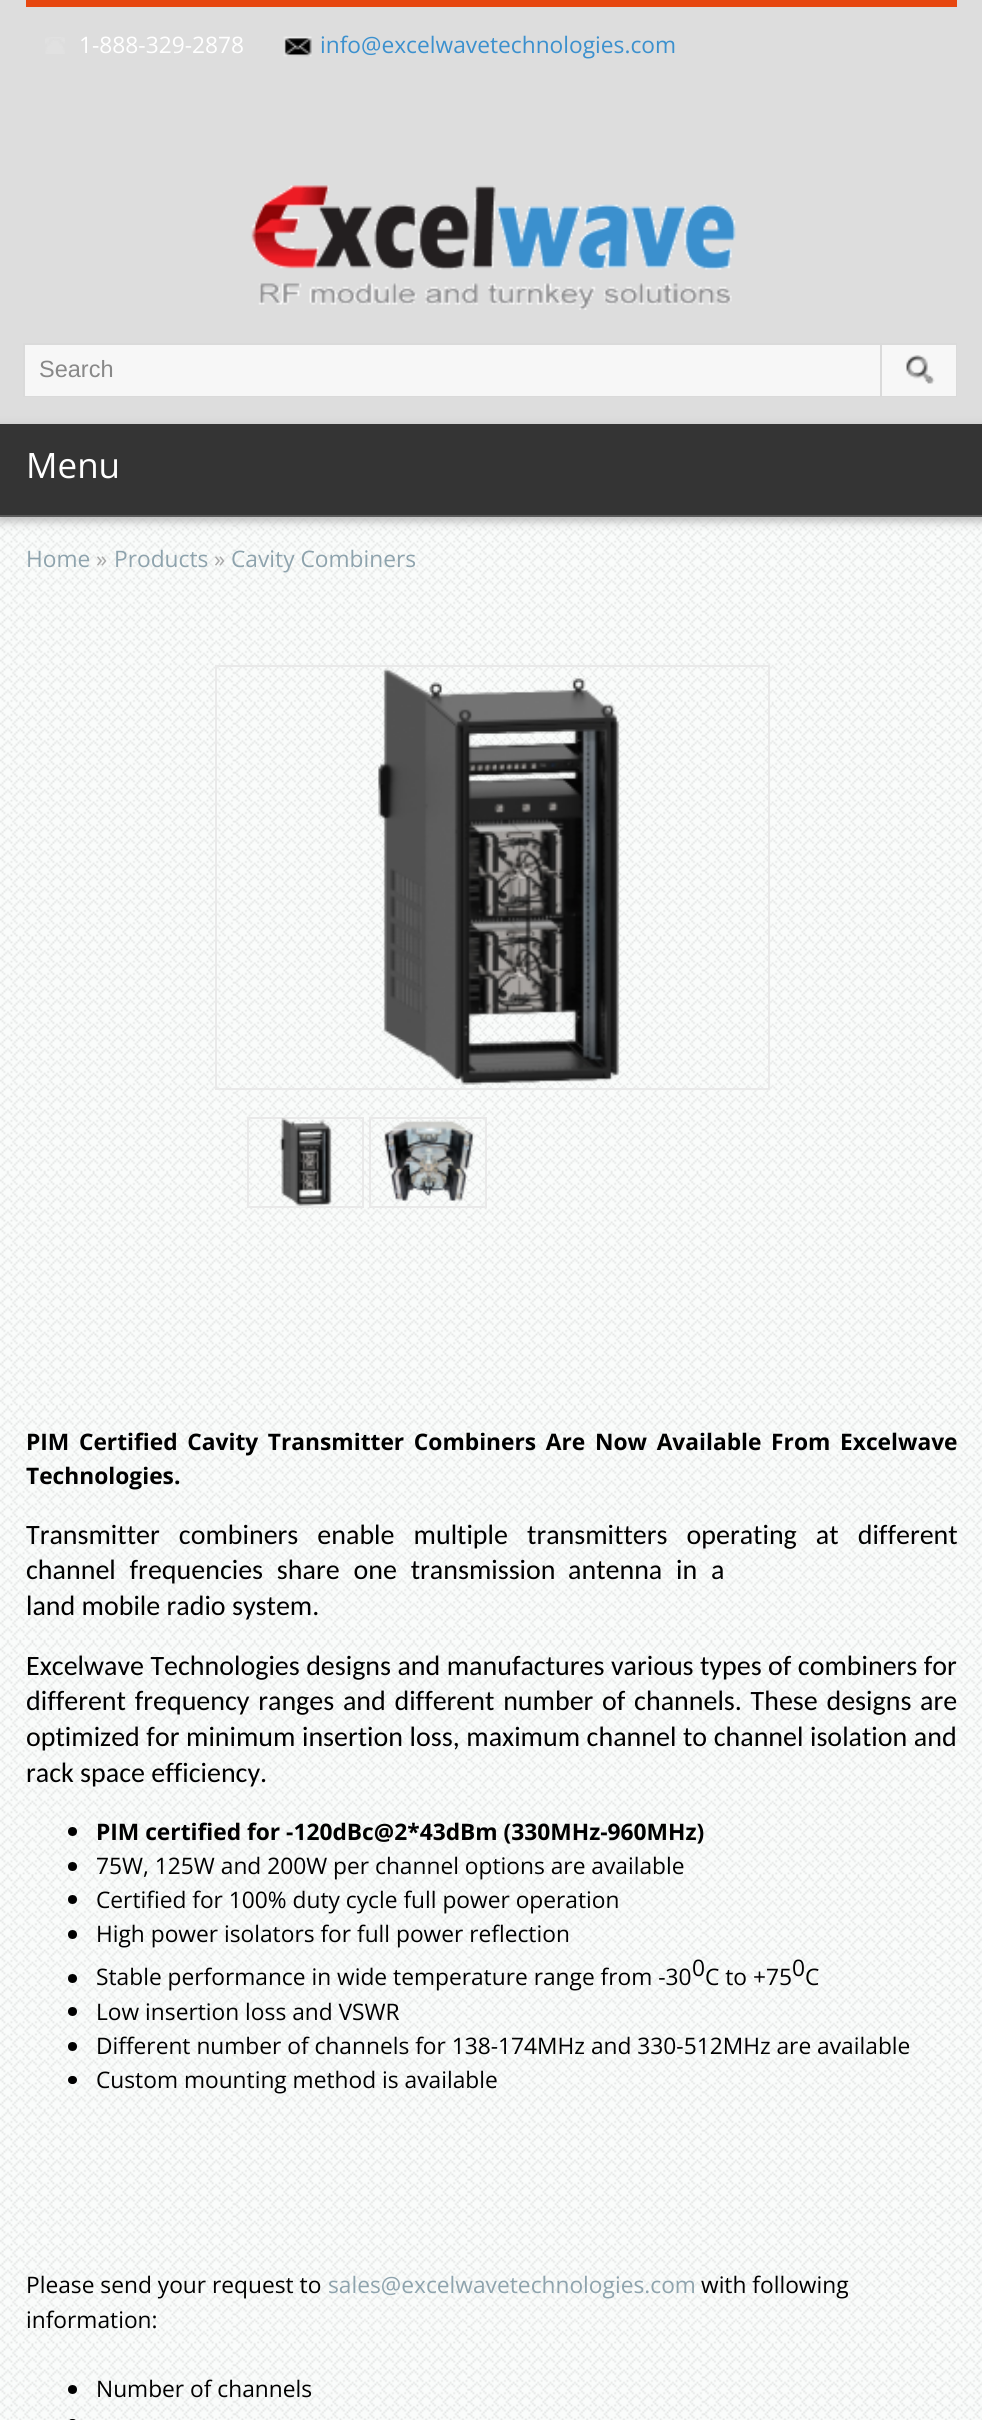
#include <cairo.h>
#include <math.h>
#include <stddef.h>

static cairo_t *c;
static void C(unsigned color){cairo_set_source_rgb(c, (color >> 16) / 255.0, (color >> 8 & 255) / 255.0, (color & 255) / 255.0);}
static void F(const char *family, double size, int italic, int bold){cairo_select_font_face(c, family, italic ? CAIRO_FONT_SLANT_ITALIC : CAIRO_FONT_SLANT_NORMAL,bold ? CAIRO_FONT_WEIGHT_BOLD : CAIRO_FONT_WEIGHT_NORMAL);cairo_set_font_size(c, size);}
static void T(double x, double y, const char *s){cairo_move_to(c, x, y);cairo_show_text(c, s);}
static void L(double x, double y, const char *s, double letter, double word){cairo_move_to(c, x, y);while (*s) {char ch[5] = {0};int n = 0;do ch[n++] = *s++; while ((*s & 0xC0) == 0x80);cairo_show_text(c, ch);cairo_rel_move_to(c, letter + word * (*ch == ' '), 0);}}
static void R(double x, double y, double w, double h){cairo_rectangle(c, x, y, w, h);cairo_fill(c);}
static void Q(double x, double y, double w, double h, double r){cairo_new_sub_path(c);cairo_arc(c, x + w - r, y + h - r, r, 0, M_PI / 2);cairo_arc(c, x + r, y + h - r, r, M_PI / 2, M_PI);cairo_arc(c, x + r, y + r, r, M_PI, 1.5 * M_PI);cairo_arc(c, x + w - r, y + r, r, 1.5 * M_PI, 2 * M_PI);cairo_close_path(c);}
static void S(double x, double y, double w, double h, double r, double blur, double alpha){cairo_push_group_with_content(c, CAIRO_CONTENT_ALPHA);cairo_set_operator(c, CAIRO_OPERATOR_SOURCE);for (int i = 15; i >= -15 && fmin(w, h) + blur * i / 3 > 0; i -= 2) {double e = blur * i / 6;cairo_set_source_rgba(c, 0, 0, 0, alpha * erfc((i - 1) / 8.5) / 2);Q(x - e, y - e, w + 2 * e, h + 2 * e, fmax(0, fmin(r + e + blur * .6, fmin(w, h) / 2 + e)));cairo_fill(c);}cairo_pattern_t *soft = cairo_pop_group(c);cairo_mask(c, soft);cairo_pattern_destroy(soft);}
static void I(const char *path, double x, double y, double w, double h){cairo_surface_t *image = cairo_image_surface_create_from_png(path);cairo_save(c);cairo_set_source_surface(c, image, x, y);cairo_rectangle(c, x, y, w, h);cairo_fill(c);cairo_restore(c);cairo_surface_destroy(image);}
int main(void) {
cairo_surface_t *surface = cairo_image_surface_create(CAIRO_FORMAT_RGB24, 982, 2420);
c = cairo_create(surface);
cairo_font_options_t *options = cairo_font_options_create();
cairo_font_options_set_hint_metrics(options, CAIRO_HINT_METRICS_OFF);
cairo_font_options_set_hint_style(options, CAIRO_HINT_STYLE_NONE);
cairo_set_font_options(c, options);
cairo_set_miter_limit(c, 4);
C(0xffffff);
cairo_paint(c);
I("1.png",0,517,982,1903);
C(0xdddddd);
R(0,0,982,424);
C(0xe74710);
R(26,0,931,7);
I("2.png",45,37,20,17);
F("Open Sans",22.75,0,0);
C(0xffffff);
T(79,53,"1-888-329-2878");
I("3.png",283,36,29,21);
C(0x3b90ce);
T(320,53,"info@excelwavetechnologies.com");
I("4.png",251,185,485,125);
cairo_rectangle(c,24,344,932,52);
C(0xdadada);
cairo_stroke(c);
C(0xf7f7f7);
R(25,345,931,51);
F("Liberation Sans",23.5,0,0);
C(0x888888);
T(39,377,"Search");
I("5.png",906,355,29,29);
C(0xdadada);
R(880,345,2,52);
C(0xc0c0c0);
S(-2,425,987,97,0,4.5,1);
C(0x343434);
R(0,424,982,91);
C(0x5a5a5a);
R(0,515,982,2);
F("Open Sans",35,0,0);
C(0xffffff);
T(26,478,"Menu");
F("Open Sans",22.75,0,0);
C(0x8ea3ad);
T(26,567,"Home");
C(0xaaaaaa);
T(96,567,"»");
C(0x8ea3ad);
T(114,567,"Products");
C(0xaaaaaa);
T(214,567,"»");
C(0x8ea3ad);
T(231,567,"Cavity Combiners");
cairo_rectangle(c,216,666,553,423);
C(0xe9e9e9);
cairo_stroke(c);
I("6.png",378,668,242,417);
cairo_rectangle(c,248,1118,115,89);
cairo_stroke(c);
cairo_rectangle(c,370,1118,116,89);
cairo_stroke(c);
I("7.png",279,1118,53,88);
I("8.png",384,1120,91,81);
F("Open Sans",22.75,0,1);
C(0x000000);
L(26,1450,"PIM Certified Cavity Transmitter Combiners Are Now Available From Excelwave",0,3.75);
T(26,1484,"Technologies.");
F("Carlito",28,0,0);
L(26,1544,"Transmitter combiners enable multiple transmitters operating at different",0,12.75);
L(26,1579,"channel frequencies share one transmission",0,7.5);
L(568,1579,"antenna in a",0,7.5);
T(26,1615,"land mobile radio system.");
L(26,1675,"Excelwave Technologies designs and manufactures various types of combiners for",0,.1);
L(26,1710,"different frequency ranges and different number of channels. These designs are",0,2.4);
L(26,1746,"optimized for minimum insertion loss, maximum channel to channel isolation and",0,.25);
T(26,1782,"rack space efficiency.");
cairo_new_path(c);
cairo_arc(c,72.5,1831.5,4.5,0,2 * M_PI);
cairo_fill(c);
F("Open Sans",22.75,0,1);
T(96,1840,"PIM certified for -120dBc@2*43dBm (330MHz-960MHz)");
cairo_new_path(c);
cairo_arc(c,72.5,1866.5,4.5,0,2 * M_PI);
cairo_fill(c);
F("Open Sans",22.75,0,0);
T(96,1874,"75W, 125W and 200W per channel options are available");
cairo_new_path(c);
cairo_arc(c,72.5,1899.5,4.5,0,2 * M_PI);
cairo_fill(c);
T(96,1908,"Certified for 100% duty cycle full power operation");
cairo_new_path(c);
cairo_arc(c,72.5,1934.5,4.5,0,2 * M_PI);
cairo_fill(c);
T(96,1942,"High power isolators for full power reflection");
cairo_new_path(c);
cairo_arc(c,72.5,1978.5,4.5,0,2 * M_PI);
cairo_fill(c);
T(96,1985,"Stable performance in wide temperature range from -30");
T(692,1976,"0");
T(705,1985,"C to +75");
T(792,1976,"0");
T(805,1985,"C");
cairo_new_path(c);
cairo_arc(c,72.5,2011.5,4.5,0,2 * M_PI);
cairo_fill(c);
T(96,2020,"Low insertion loss and VSWR");
cairo_new_path(c);
cairo_arc(c,72.5,2046.5,4.5,0,2 * M_PI);
cairo_fill(c);
T(96,2054,"Different number of channels for 138-174MHz and 330-512MHz are available");
Q(68,2076,9,8,4);
cairo_fill(c);
T(96,2088,"Custom mounting method is available");
T(26,2293,"Please send your request to");
C(0x8ea3ad);
T(328,2293,"sales@excelwavetechnologies.com");
C(0x000000);
T(701,2293,"with following");
T(26,2328,"information:");
cairo_new_path(c);
cairo_arc(c,72.5,2389.5,4.5,0,2 * M_PI);
cairo_fill(c);
T(96,2397,"Number of channels");
Q(68,2419,9,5,4);
cairo_fill(c);
cairo_surface_write_to_png(surface, "o.png");
cairo_font_options_destroy(options);
cairo_destroy(c);
cairo_surface_destroy(surface);
return 0;
}
